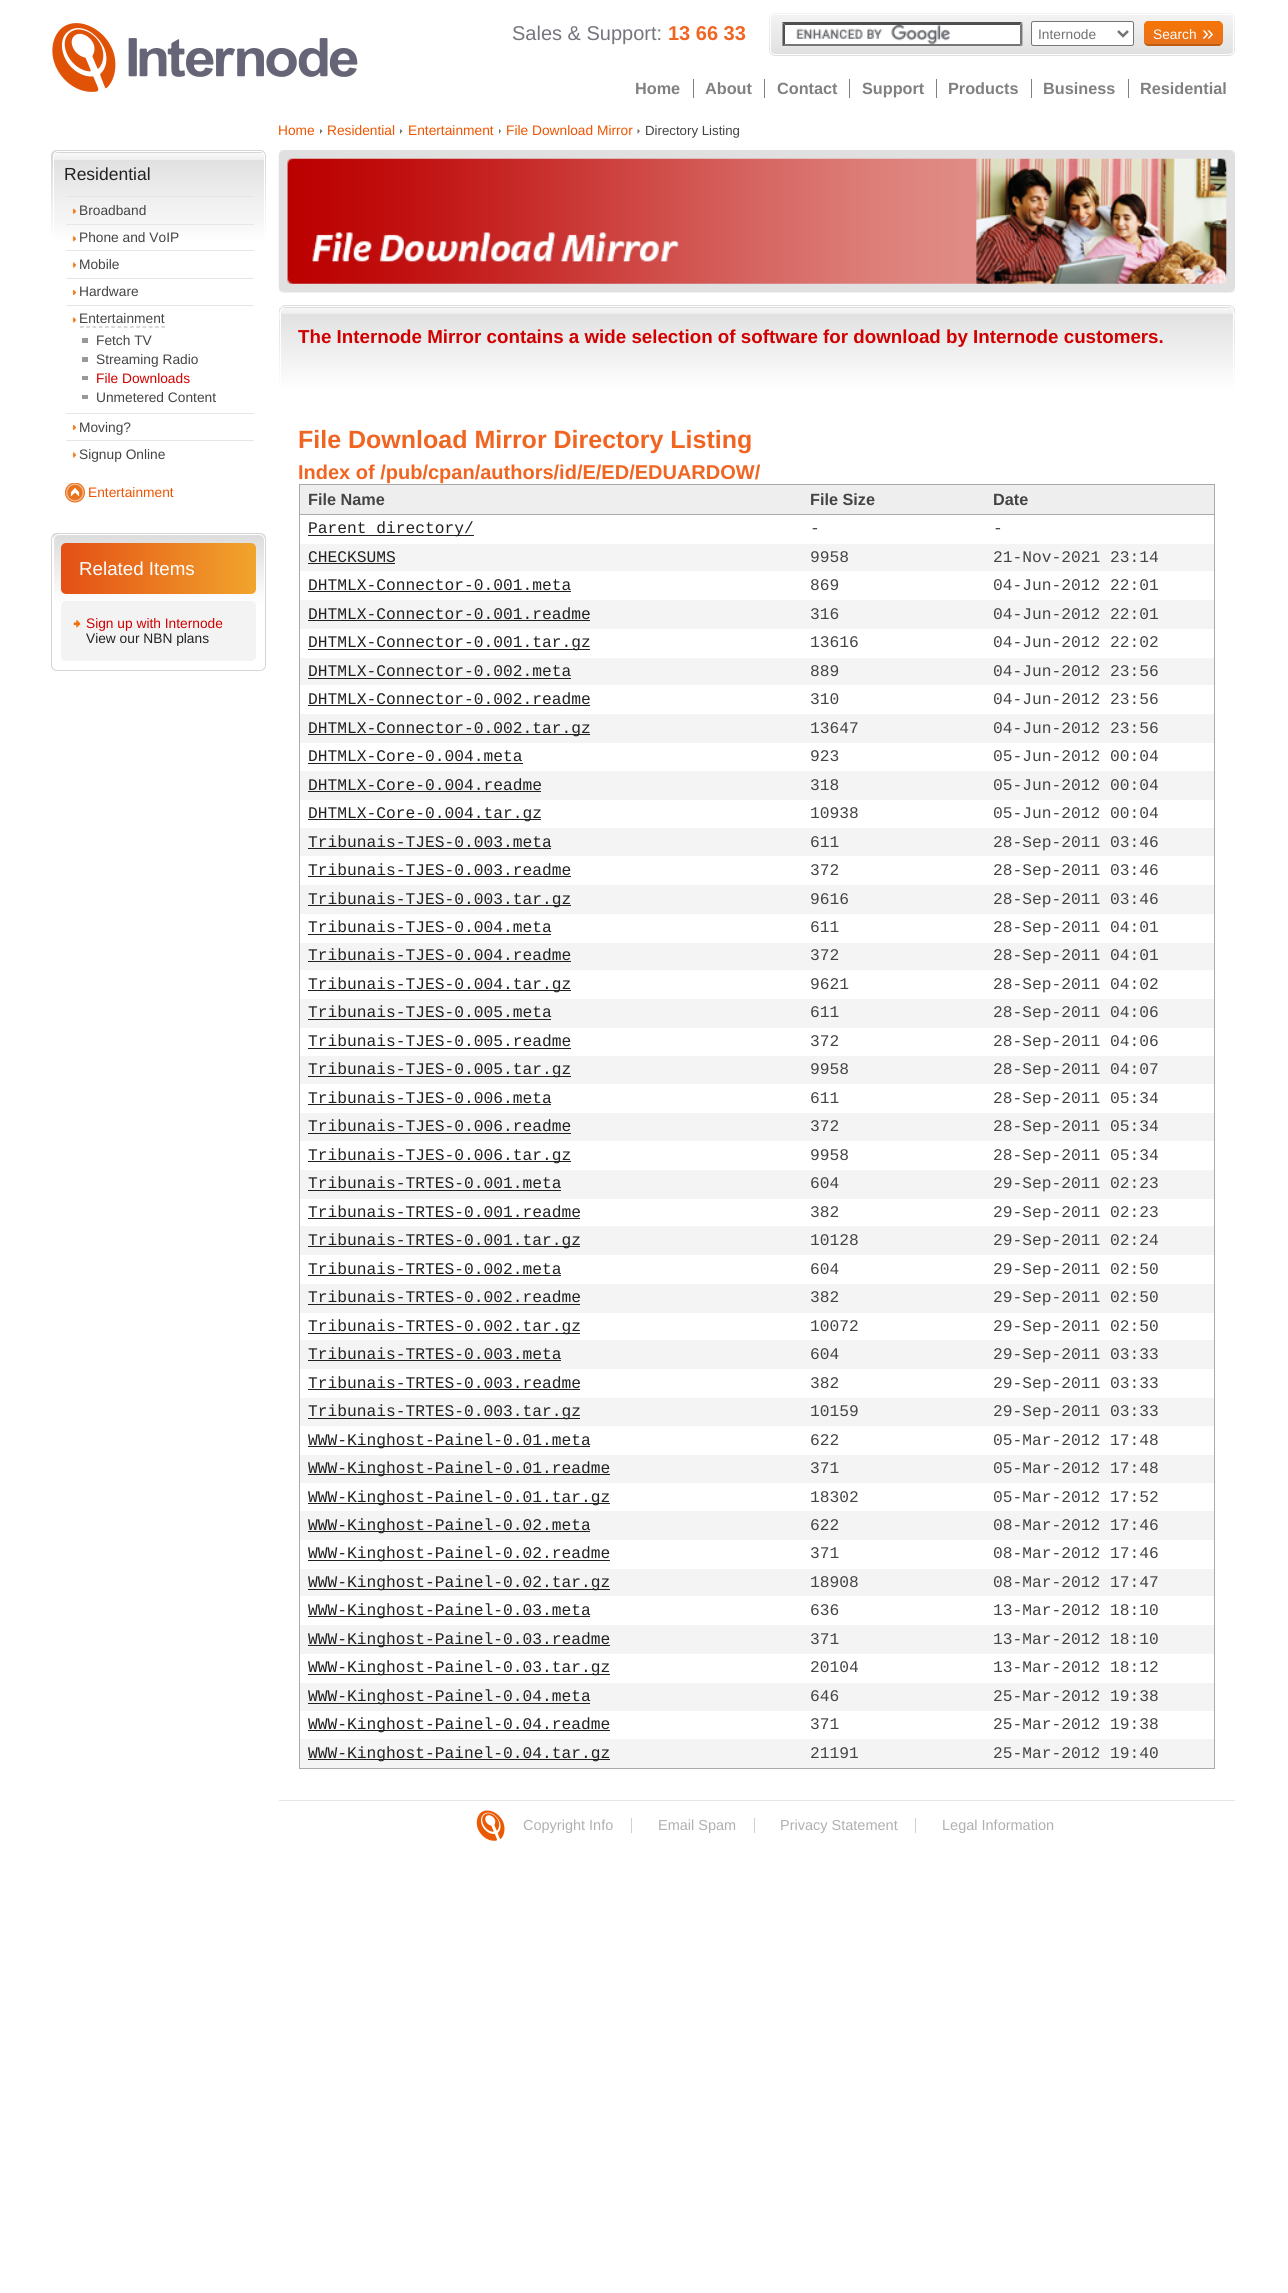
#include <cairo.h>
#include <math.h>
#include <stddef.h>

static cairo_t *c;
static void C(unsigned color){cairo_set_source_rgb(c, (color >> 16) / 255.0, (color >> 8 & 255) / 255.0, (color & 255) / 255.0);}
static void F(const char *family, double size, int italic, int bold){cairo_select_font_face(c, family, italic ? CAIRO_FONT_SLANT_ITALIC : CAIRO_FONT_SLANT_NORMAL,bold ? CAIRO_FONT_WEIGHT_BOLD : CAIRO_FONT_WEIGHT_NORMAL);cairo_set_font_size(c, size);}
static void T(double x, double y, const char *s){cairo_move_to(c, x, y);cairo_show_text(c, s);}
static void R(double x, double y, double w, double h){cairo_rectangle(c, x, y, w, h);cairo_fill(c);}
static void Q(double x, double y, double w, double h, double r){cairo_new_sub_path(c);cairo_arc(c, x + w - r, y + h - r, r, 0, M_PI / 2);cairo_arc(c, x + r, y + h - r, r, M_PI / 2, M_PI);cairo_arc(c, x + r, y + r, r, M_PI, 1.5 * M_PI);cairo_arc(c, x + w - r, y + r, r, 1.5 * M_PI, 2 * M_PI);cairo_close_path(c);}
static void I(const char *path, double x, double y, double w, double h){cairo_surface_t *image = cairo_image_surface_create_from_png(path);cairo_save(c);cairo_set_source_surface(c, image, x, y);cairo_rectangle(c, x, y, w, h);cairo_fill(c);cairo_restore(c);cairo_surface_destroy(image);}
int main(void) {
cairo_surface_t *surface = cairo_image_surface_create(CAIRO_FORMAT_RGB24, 1288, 2293);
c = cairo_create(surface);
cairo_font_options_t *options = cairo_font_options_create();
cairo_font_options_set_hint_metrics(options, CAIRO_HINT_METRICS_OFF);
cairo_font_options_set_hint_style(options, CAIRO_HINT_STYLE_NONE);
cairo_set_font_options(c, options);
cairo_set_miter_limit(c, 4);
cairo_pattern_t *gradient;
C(0xffffff);
cairo_paint(c);
I("1.png",52,23,306,69);
F("Liberation Sans",20,0,0);
C(0x76757e);
T(512,40,"Sales & Support:");
F("Liberation Sans",20,0,1);
C(0xf06522);
T(668,40,"13 66 33");
gradient = cairo_pattern_create_linear(1002,12,1002,56);
cairo_pattern_add_color_stop_rgba(gradient,0,0.957,0.957,0.957,1);
cairo_pattern_add_color_stop_rgba(gradient,1,0.878,0.878,0.878,1);
cairo_set_source(c,gradient);
cairo_pattern_destroy(gradient);
Q(769,13,466,43,6);
cairo_fill(c);
Q(770.5,14.5,463,40,4.5);
C(0xffffff);
cairo_set_line_width(c,1);
cairo_stroke(c);
R(783,23,240,23);
I("2.png",796,25,154,19);
C(0x4f4f4f);
cairo_new_path(c);
cairo_move_to(c,782,22);
cairo_line_to(c,1022,22);
cairo_line_to(c,1020,25);
cairo_line_to(c,785,25);
cairo_close_path(c);
cairo_fill(c);
C(0x767676);
cairo_new_path(c);
cairo_move_to(c,1022.5,22.5);
cairo_line_to(c,1022.5,46);
cairo_line_to(c,1020,44);
cairo_line_to(c,1020,25);
cairo_close_path(c);
cairo_fill(c);
cairo_new_path(c);
cairo_move_to(c,1022,46);
cairo_line_to(c,782,46);
cairo_line_to(c,785,44);
cairo_line_to(c,1020,44);
cairo_close_path(c);
cairo_fill(c);
C(0x4f4f4f);
cairo_new_path(c);
cairo_move_to(c,782.5,46);
cairo_line_to(c,782.5,22.5);
cairo_line_to(c,785,25);
cairo_line_to(c,785,44);
cairo_close_path(c);
cairo_fill(c);
C(0xffffff);
Q(1031.5,21.5,102,24,2);
cairo_fill_preserve(c);
C(0x767676);
cairo_stroke(c);
cairo_new_path(c);
cairo_move_to(c,1118,31);
cairo_line_to(c,1123,36);
cairo_line_to(c,1128,31);
C(0x727272);
cairo_set_line_width(c,2.5);
cairo_stroke(c);
F("Liberation Sans",13.75,0,0);
T(1038,39,"Internode");
cairo_save(c);
Q(1144,21,79,25,5);
cairo_clip(c);
gradient = cairo_pattern_create_linear(1183,3.7,1183,24);
cairo_pattern_add_color_stop_rgba(gradient,0,0.957,0.455,0.031,1);
cairo_pattern_add_color_stop_rgba(gradient,1,0.91,0.451,0.11,1);
cairo_set_source(c,gradient);
cairo_pattern_destroy(gradient);
R(1144,21,79,3);
gradient = cairo_pattern_create_linear(1183,24,1183,44);
cairo_pattern_add_color_stop_rgba(gradient,0,0.957,0.455,0.031,1);
cairo_pattern_add_color_stop_rgba(gradient,1,0.91,0.451,0.11,1);
cairo_set_source(c,gradient);
cairo_pattern_destroy(gradient);
R(1144,24,79,20);
gradient = cairo_pattern_create_linear(1183,44,1183,64);
cairo_pattern_add_color_stop_rgba(gradient,0,0.957,0.455,0.031,1);
cairo_pattern_add_color_stop_rgba(gradient,1,0.91,0.451,0.11,1);
cairo_set_source(c,gradient);
cairo_pattern_destroy(gradient);
R(1144,44,79,2);
cairo_restore(c);
C(0xf47408);
cairo_new_path(c);
cairo_move_to(c,1149,24);
cairo_line_to(c,1218,24);
cairo_curve_to(c,1220,24,1222,25,1222,26);
cairo_curve_to(c,1222,24,1221,22,1219,21);
cairo_line_to(c,1147,21);
cairo_curve_to(c,1145,22,1144,24,1144,26);
cairo_curve_to(c,1144,25,1146,24,1149,24);
cairo_close_path(c);
cairo_fill(c);
C(0xbe5c13);
cairo_new_path(c);
cairo_move_to(c,1218,46);
cairo_curve_to(c,1220,46,1222,44,1222,41);
cairo_curve_to(c,1222,43,1220,44,1218,44);
cairo_line_to(c,1149,44);
cairo_curve_to(c,1146,44,1144,43,1144,41);
cairo_curve_to(c,1144,44,1146,46,1149,46);
cairo_close_path(c);
cairo_fill(c);
C(0xffffff);
T(1153,39,"Search");
F("Liberation Sans",21,0,0);
T(1202,40,"»");
F("Liberation Sans",16.25,0,1);
C(0x808080);
T(635,94,"Home");
R(693,79,1,19);
T(705,94,"About");
R(764,79,1,19);
T(777,94,"Contact");
R(849,79,1,19);
T(862,94,"Support");
R(936,79,1,19);
T(948,94,"Products");
R(1031,79,1,19);
T(1043,94,"Business");
R(1128,79,1,19);
T(1140,94,"Residential");
gradient = cairo_pattern_create_linear(159,150,159,244);
cairo_pattern_add_color_stop_rgba(gradient,0,0.835,0.835,0.835,1);
cairo_pattern_add_color_stop_rgba(gradient,.98,1,1,1,1);
cairo_pattern_add_color_stop_rgba(gradient,1,1,1,1,1);
cairo_set_source(c,gradient);
cairo_pattern_destroy(gradient);
cairo_new_path(c);
cairo_move_to(c,57,150);
cairo_line_to(c,260,150);
cairo_curve_to(c,263.5,150,266,152.5,266,156);
cairo_line_to(c,266,244);
cairo_line_to(c,51,244);
cairo_line_to(c,51,156);
cairo_curve_to(c,51,152.5,53.5,150,57,150);
cairo_close_path(c);
cairo_fill(c);
gradient = cairo_pattern_create_linear(159,153,159,245);
cairo_pattern_add_color_stop_rgba(gradient,0,0.973,0.973,0.973,1);
cairo_pattern_add_color_stop_rgba(gradient,.08,0.933,0.933,0.933,1);
cairo_pattern_add_color_stop_rgba(gradient,.08,0.882,0.882,0.882,1);
cairo_pattern_add_color_stop_rgba(gradient,.98,1,1,1,1);
cairo_pattern_add_color_stop_rgba(gradient,1,1,1,1,1);
cairo_set_source(c,gradient);
cairo_pattern_destroy(gradient);
R(54,153,210,62);
Q(53.5,151.5,211,367,4.5);
C(0xffffff);
cairo_set_line_width(c,1);
cairo_stroke(c);
F("Liberation Sans",17.5,0,0);
C(0x222222);
T(64,180,"Residential");
I("3.png",72,208,4,6);
C(0xe6e6e6);
R(66,196,188,1);
F("Liberation Sans",13.75,0,0);
C(0x444444);
T(79,215,"Broadband");
I("4.png",72,236,4,6);
C(0xe6e6e6);
R(66,224,188,1);
C(0x444444);
T(79,242,"Phone and VoIP");
I("5.png",72,262,4,6);
C(0xe6e6e6);
R(66,250,188,1);
C(0x444444);
T(79,269,"Mobile");
I("6.png",72,290,4,5);
C(0xe6e6e6);
R(66,278,188,1);
C(0x444444);
T(79,296,"Hardware");
I("5.png",72,317,4,6);
C(0xe6e6e6);
R(66,305,188,1);
C(0x444444);
T(79,323,"Entertainment");
cairo_new_path(c);
cairo_move_to(c,80,327);
cairo_line_to(c,165,327);
C(0xc0c0c0);
cairo_set_line_width(c,1.2);
cairo_set_dash(c,(double[]){3.75,2.5},2,0);
cairo_stroke(c);
C(0x999999);
R(82,338,6,5);
C(0x444444);
T(96,345,"Fetch TV");
C(0x999999);
R(82,357,6,5);
C(0x444444);
T(96,364,"Streaming Radio");
C(0x999999);
R(82,376,6,4);
C(0xd00000);
T(96,383,"File Downloads");
C(0x999999);
R(82,395,6,4);
C(0x444444);
T(96,402,"Unmetered Content");
I("6.png",72,425,4,5);
C(0xe6e6e6);
R(66,413,188,1);
C(0x444444);
T(79,432,"Moving?");
I("5.png",72,452,4,6);
C(0xe6e6e6);
R(66,440,188,1);
C(0x444444);
T(79,459,"Signup Online");
I("7.png",65,483,20,20);
C(0xee5400);
T(88,497,"Entertainment");
cairo_save(c);
Q(51,533,215,138,6);
cairo_clip(c);
gradient = cairo_pattern_create_linear(159,534,159,605);
cairo_pattern_add_color_stop_rgba(gradient,0,0.863,0.863,0.863,1);
cairo_pattern_add_color_stop_rgba(gradient,1,1,1,1,1);
cairo_set_source(c,gradient);
cairo_pattern_destroy(gradient);
R(53,534,212,71);
cairo_restore(c);
Q(51.5,533.5,214,137,5.5);
C(0xd5d5d5);
cairo_set_line_width(c,1);
cairo_set_dash(c,NULL,0,0);
cairo_stroke(c);
Q(53.5,534.5,211,135,5.5);
C(0xffffff);
cairo_stroke(c);
gradient = cairo_pattern_create_linear(61,568,256,568);
cairo_pattern_add_color_stop_rgba(gradient,0,0.894,0.31,0.082,1);
cairo_pattern_add_color_stop_rgba(gradient,1,0.945,0.647,0.176,1);
cairo_set_source(c,gradient);
cairo_pattern_destroy(gradient);
Q(61,543,195,51,5);
cairo_fill(c);
F("Liberation Sans",18.75,0,0);
C(0xffffff);
T(79,575,"Related Items");
C(0xf3f3f3);
Q(61,601,195,60,5);
cairo_fill(c);
I("8.png",73,620,8,8);
F("Liberation Sans",13.75,0,0);
C(0xd00000);
T(86,628,"Sign up with Internode");
C(0x222222);
T(86,643,"View our NBN plans");
C(0xee5400);
T(278,135,"Home");
C(0x717171);
cairo_new_path(c);
cairo_move_to(c,322.5,131);
cairo_line_to(c,320,129);
cairo_line_to(c,320,134);
cairo_close_path(c);
cairo_fill(c);
C(0xee5400);
T(327,135,"Residential");
C(0x717171);
cairo_new_path(c);
cairo_move_to(c,402.5,131);
cairo_line_to(c,400,129);
cairo_line_to(c,400,134);
cairo_close_path(c);
cairo_fill(c);
C(0xee5400);
T(408,135,"Entertainment");
C(0x717171);
cairo_new_path(c);
cairo_move_to(c,501,131);
cairo_line_to(c,499,129);
cairo_line_to(c,499,134);
cairo_close_path(c);
cairo_fill(c);
C(0xee5400);
T(506,135,"File Download Mirror");
C(0x717171);
cairo_new_path(c);
cairo_move_to(c,640,131);
cairo_line_to(c,637.5,129);
cairo_line_to(c,637.5,134);
cairo_close_path(c);
cairo_fill(c);
F("Liberation Sans",13.25,0,0);
C(0x444444);
T(645,135,"Directory Listing");
I("9.png",278,150,957,143);
cairo_save(c);
Q(278,304,958,94,10);
cairo_clip(c);
gradient = cairo_pattern_create_linear(757,305,757,394);
cairo_pattern_add_color_stop_rgba(gradient,0,0.867,0.867,0.867,1);
cairo_pattern_add_color_stop_rgba(gradient,.98,1,1,1,1);
cairo_pattern_add_color_stop_rgba(gradient,1,1,1,1,1);
cairo_set_source(c,gradient);
cairo_pattern_destroy(gradient);
R(279,305,956,89);
cairo_restore(c);
cairo_save(c);
Q(279,305,956,91,9);
cairo_clip(c);
gradient = cairo_pattern_create_linear(757,307,757,393);
cairo_pattern_add_color_stop_rgba(gradient,0,0.973,0.973,0.973,1);
cairo_pattern_add_color_stop_rgba(gradient,.08,0.933,0.933,0.933,1);
cairo_pattern_add_color_stop_rgba(gradient,.08,0.882,0.882,0.882,1);
cairo_pattern_add_color_stop_rgba(gradient,.98,1,1,1,1);
cairo_pattern_add_color_stop_rgba(gradient,1,1,1,1,1);
cairo_set_source(c,gradient);
cairo_pattern_destroy(gradient);
R(281,308,952,85);
cairo_restore(c);
C(0xffffff);
cairo_new_path(c);
cairo_move_to(c,285,306);
cairo_line_to(c,1229,306);
cairo_curve_to(c,1237,306,1234,322,1234,324);
cairo_line_to(c,1234,391);
cairo_line_to(c,1233,393);
cairo_line_to(c,1233,311);
cairo_curve_to(c,1233,309,1231,307,1229,307);
cairo_line_to(c,285,307);
cairo_curve_to(c,283,307,281,309,281,311);
cairo_line_to(c,281,393);
cairo_line_to(c,280,392);
cairo_line_to(c,280,324);
cairo_curve_to(c,280,322,277,306,285,306);
cairo_close_path(c);
cairo_fill(c);
F("Liberation Sans",18.75,0,1);
C(0xd00000);
T(298,343,"The Internode Mirror contains a wide selection of software for download by Internode customers.");
F("Liberation Sans",25,0,1);
C(0xf06522);
T(298,448,"File Download Mirror Directory Listing");
F("Liberation Sans",20,0,1);
T(298,479,"Index of /pub/cpan/authors/id/E/ED/EDUARDOW/");
C(0xaaaaaa);
R(299,484,916,1);
R(1214,484,1,1285);
R(299,1768,916,1);
R(299,484,1,1285);
C(0xeeeeee);
R(300,485,914,29);
F("Liberation Sans",16.25,0,1);
C(0x444444);
T(308,505,"File Name");
T(810,505,"File Size");
C(0xaaaaaa);
R(299,514,916,1);
C(0x444444);
T(993,505,"Date");
C(0x222222);
R(308,535,166,1);
F("Liberation Mono",16.25,0,0);
T(308,533,"Parent directory/");
C(0x444444);
T(810,533,"-");
T(993,533,"-");
C(0xf4f4f4);
R(300,544,914,27);
C(0x222222);
T(308,562,"CHECKSUMS");
R(308,563,87,1);
C(0x444444);
T(810,562,"9958");
T(993,562,"21-Nov-2021 23:14");
C(0x222222);
T(308,590,"DHTMLX-Connector-0.001.meta");
R(308,591,263,1);
C(0x444444);
T(810,590,"869");
T(993,590,"04-Jun-2012 22:01");
C(0xf4f4f4);
R(300,600,914,29);
C(0x222222);
T(308,619,"DHTMLX-Connector-0.001.readme");
R(308,620,282,1);
C(0x444444);
T(810,619,"316");
T(993,619,"04-Jun-2012 22:01");
C(0x222222);
R(308,649,282,1);
T(308,647,"DHTMLX-Connector-0.001.tar.gz");
C(0x444444);
T(810,647,"13616");
T(993,647,"04-Jun-2012 22:02");
C(0xf4f4f4);
R(300,658,914,27);
C(0x222222);
T(308,676,"DHTMLX-Connector-0.002.meta");
R(308,678,263,1);
C(0x444444);
T(810,676,"889");
T(993,676,"04-Jun-2012 23:56");
C(0x222222);
T(308,704,"DHTMLX-Connector-0.002.readme");
R(308,705,282,1);
C(0x444444);
T(810,704,"310");
T(993,704,"04-Jun-2012 23:56");
C(0xf4f4f4);
R(300,714,914,29);
C(0x222222);
R(308,734,282,1);
T(308,733,"DHTMLX-Connector-0.002.tar.gz");
C(0x444444);
T(810,733,"13647");
T(993,733,"04-Jun-2012 23:56");
C(0x222222);
T(308,761,"DHTMLX-Core-0.004.meta");
R(308,763,215,1);
C(0x444444);
T(810,761,"923");
T(993,761,"05-Jun-2012 00:04");
C(0xf4f4f4);
R(300,771,914,29);
C(0x222222);
T(308,790,"DHTMLX-Core-0.004.readme");
R(308,791,233,1);
C(0x444444);
T(810,790,"318");
T(993,790,"05-Jun-2012 00:04");
C(0x222222);
R(308,819,233,1);
T(308,818,"DHTMLX-Core-0.004.tar.gz");
C(0x444444);
T(810,818,"10938");
T(993,818,"05-Jun-2012 00:04");
C(0xf4f4f4);
R(300,828,914,28);
C(0x222222);
T(308,847,"Tribunais-TJES-0.003.meta");
R(308,848,243,1);
C(0x444444);
T(810,847,"611");
T(993,847,"28-Sep-2011 03:46");
C(0x222222);
T(308,875,"Tribunais-TJES-0.003.readme");
R(308,876,263,1);
C(0x444444);
T(810,875,"372");
T(993,875,"28-Sep-2011 03:46");
C(0xf4f4f4);
R(300,885,914,29);
C(0x222222);
R(308,905,263,1);
T(308,904,"Tribunais-TJES-0.003.tar.gz");
C(0x444444);
T(810,904,"9616");
T(993,904,"28-Sep-2011 03:46");
C(0x222222);
T(308,932,"Tribunais-TJES-0.004.meta");
R(308,934,243,1);
C(0x444444);
T(810,932,"611");
T(993,932,"28-Sep-2011 04:01");
C(0xf4f4f4);
R(300,943,914,27);
C(0x222222);
T(308,960,"Tribunais-TJES-0.004.readme");
R(308,961,263,1);
C(0x444444);
T(810,960,"372");
T(993,960,"28-Sep-2011 04:01");
C(0x222222);
R(308,990,263,1);
T(308,989,"Tribunais-TJES-0.004.tar.gz");
C(0x444444);
T(810,989,"9621");
T(993,989,"28-Sep-2011 04:02");
C(0xf4f4f4);
R(300,999,914,29);
C(0x222222);
T(308,1017,"Tribunais-TJES-0.005.meta");
R(308,1019,243,1);
C(0x444444);
T(810,1017,"611");
T(993,1017,"28-Sep-2011 04:06");
C(0x222222);
T(308,1046,"Tribunais-TJES-0.005.readme");
R(308,1048,263,1);
C(0x444444);
T(810,1046,"372");
T(993,1046,"28-Sep-2011 04:06");
C(0xf4f4f4);
R(300,1056,914,28);
C(0x222222);
R(308,1076,263,1);
T(308,1074,"Tribunais-TJES-0.005.tar.gz");
C(0x444444);
T(810,1074,"9958");
T(993,1074,"28-Sep-2011 04:07");
C(0x222222);
T(308,1103,"Tribunais-TJES-0.006.meta");
R(308,1104,243,1);
C(0x444444);
T(810,1103,"611");
T(993,1103,"28-Sep-2011 05:34");
C(0xf4f4f4);
R(300,1113,914,28);
C(0x222222);
T(308,1131,"Tribunais-TJES-0.006.readme");
R(308,1133,263,1);
C(0x444444);
T(810,1131,"372");
T(993,1131,"28-Sep-2011 05:34");
C(0x222222);
R(308,1161,263,1);
T(308,1160,"Tribunais-TJES-0.006.tar.gz");
C(0x444444);
T(810,1160,"9958");
T(993,1160,"28-Sep-2011 05:34");
C(0xf4f4f4);
R(300,1170,914,29);
C(0x222222);
T(308,1188,"Tribunais-TRTES-0.001.meta");
R(308,1190,253,1);
C(0x444444);
T(810,1188,"604");
T(993,1188,"29-Sep-2011 02:23");
C(0x222222);
T(308,1217,"Tribunais-TRTES-0.001.readme");
R(308,1218,272,1);
C(0x444444);
T(810,1217,"382");
T(993,1217,"29-Sep-2011 02:23");
C(0xf4f4f4);
R(300,1226,914,29);
C(0x222222);
R(308,1246,272,1);
T(308,1245,"Tribunais-TRTES-0.001.tar.gz");
C(0x444444);
T(810,1245,"10128");
T(993,1245,"29-Sep-2011 02:24");
C(0x222222);
T(308,1274,"Tribunais-TRTES-0.002.meta");
R(308,1275,253,1);
C(0x444444);
T(810,1274,"604");
T(993,1274,"29-Sep-2011 02:50");
C(0xf4f4f4);
R(300,1284,914,29);
C(0x222222);
T(308,1302,"Tribunais-TRTES-0.002.readme");
R(308,1304,272,1);
C(0x444444);
T(810,1302,"382");
T(993,1302,"29-Sep-2011 02:50");
C(0x222222);
R(308,1333,272,1);
T(308,1331,"Tribunais-TRTES-0.002.tar.gz");
C(0x444444);
T(810,1331,"10072");
T(993,1331,"29-Sep-2011 02:50");
C(0xf4f4f4);
R(300,1340,914,29);
C(0x222222);
T(308,1359,"Tribunais-TRTES-0.003.meta");
R(308,1360,253,1);
C(0x444444);
T(810,1359,"604");
T(993,1359,"29-Sep-2011 03:33");
C(0x222222);
T(308,1388,"Tribunais-TRTES-0.003.readme");
R(308,1389,272,1);
C(0x444444);
T(810,1388,"382");
T(993,1388,"29-Sep-2011 03:33");
C(0xf4f4f4);
R(300,1398,914,28);
C(0x222222);
R(308,1418,272,1);
T(308,1416,"Tribunais-TRTES-0.003.tar.gz");
C(0x444444);
T(810,1416,"10159");
T(993,1416,"29-Sep-2011 03:33");
C(0x222222);
R(308,1446,282,1);
T(308,1445,"WWW-Kinghost-Painel-0.01.meta");
C(0x444444);
T(810,1445,"622");
T(993,1445,"05-Mar-2012 17:48");
C(0xf4f4f4);
R(300,1455,914,28);
C(0x222222);
R(308,1474,302,1);
T(308,1473,"WWW-Kinghost-Painel-0.01.readme");
C(0x444444);
T(810,1473,"371");
T(993,1473,"05-Mar-2012 17:48");
C(0x222222);
R(308,1503,302,1);
T(308,1502,"WWW-Kinghost-Painel-0.01.tar.gz");
C(0x444444);
T(810,1502,"18302");
T(993,1502,"05-Mar-2012 17:52");
C(0xf4f4f4);
R(300,1511,914,29);
C(0x222222);
R(308,1531,282,1);
T(308,1530,"WWW-Kinghost-Painel-0.02.meta");
C(0x444444);
T(810,1530,"622");
T(993,1530,"08-Mar-2012 17:46");
C(0x222222);
R(308,1560,302,1);
T(308,1558,"WWW-Kinghost-Painel-0.02.readme");
C(0x444444);
T(810,1558,"371");
T(993,1558,"08-Mar-2012 17:46");
C(0xf4f4f4);
R(300,1569,914,27);
C(0x222222);
R(308,1589,302,1);
T(308,1587,"WWW-Kinghost-Painel-0.02.tar.gz");
C(0x444444);
T(810,1587,"18908");
T(993,1587,"08-Mar-2012 17:47");
C(0x222222);
R(308,1616,282,1);
T(308,1615,"WWW-Kinghost-Painel-0.03.meta");
C(0x444444);
T(810,1615,"636");
T(993,1615,"13-Mar-2012 18:10");
C(0xf4f4f4);
R(300,1625,914,29);
C(0x222222);
R(308,1645,302,1);
T(308,1644,"WWW-Kinghost-Painel-0.03.readme");
C(0x444444);
T(810,1644,"371");
T(993,1644,"13-Mar-2012 18:10");
C(0x222222);
R(308,1674,302,1);
T(308,1672,"WWW-Kinghost-Painel-0.03.tar.gz");
C(0x444444);
T(810,1672,"20104");
T(993,1672,"13-Mar-2012 18:12");
C(0xf4f4f4);
R(300,1683,914,28);
C(0x222222);
R(308,1703,282,1);
T(308,1701,"WWW-Kinghost-Painel-0.04.meta");
C(0x444444);
T(810,1701,"646");
T(993,1701,"25-Mar-2012 19:38");
C(0x222222);
R(308,1730,302,1);
T(308,1729,"WWW-Kinghost-Painel-0.04.readme");
C(0x444444);
T(810,1729,"371");
T(993,1729,"25-Mar-2012 19:38");
C(0xf4f4f4);
R(300,1739,914,29);
C(0x222222);
R(308,1759,302,1);
T(308,1758,"WWW-Kinghost-Painel-0.04.tar.gz");
C(0x444444);
T(810,1758,"21191");
T(993,1758,"25-Mar-2012 19:40");
C(0xe6e6e6);
R(279,1800,956,1);
I("10.png",476,1810,29,31);
F("Liberation Sans",14.5,0,0);
C(0xb0b0b0);
T(523,1830,"Copyright Info");
T(658,1830,"Email Spam");
C(0xd0d0d0);
R(631,1818,1,15);
C(0xb0b0b0);
T(780,1830,"Privacy Statement");
C(0xd0d0d0);
R(754,1818,1,15);
C(0xb0b0b0);
T(942,1830,"Legal Information");
C(0xd0d0d0);
R(915,1818,1,15);
cairo_surface_write_to_png(surface, "o.png");
cairo_font_options_destroy(options);
cairo_destroy(c);
cairo_surface_destroy(surface);
return 0;
}
